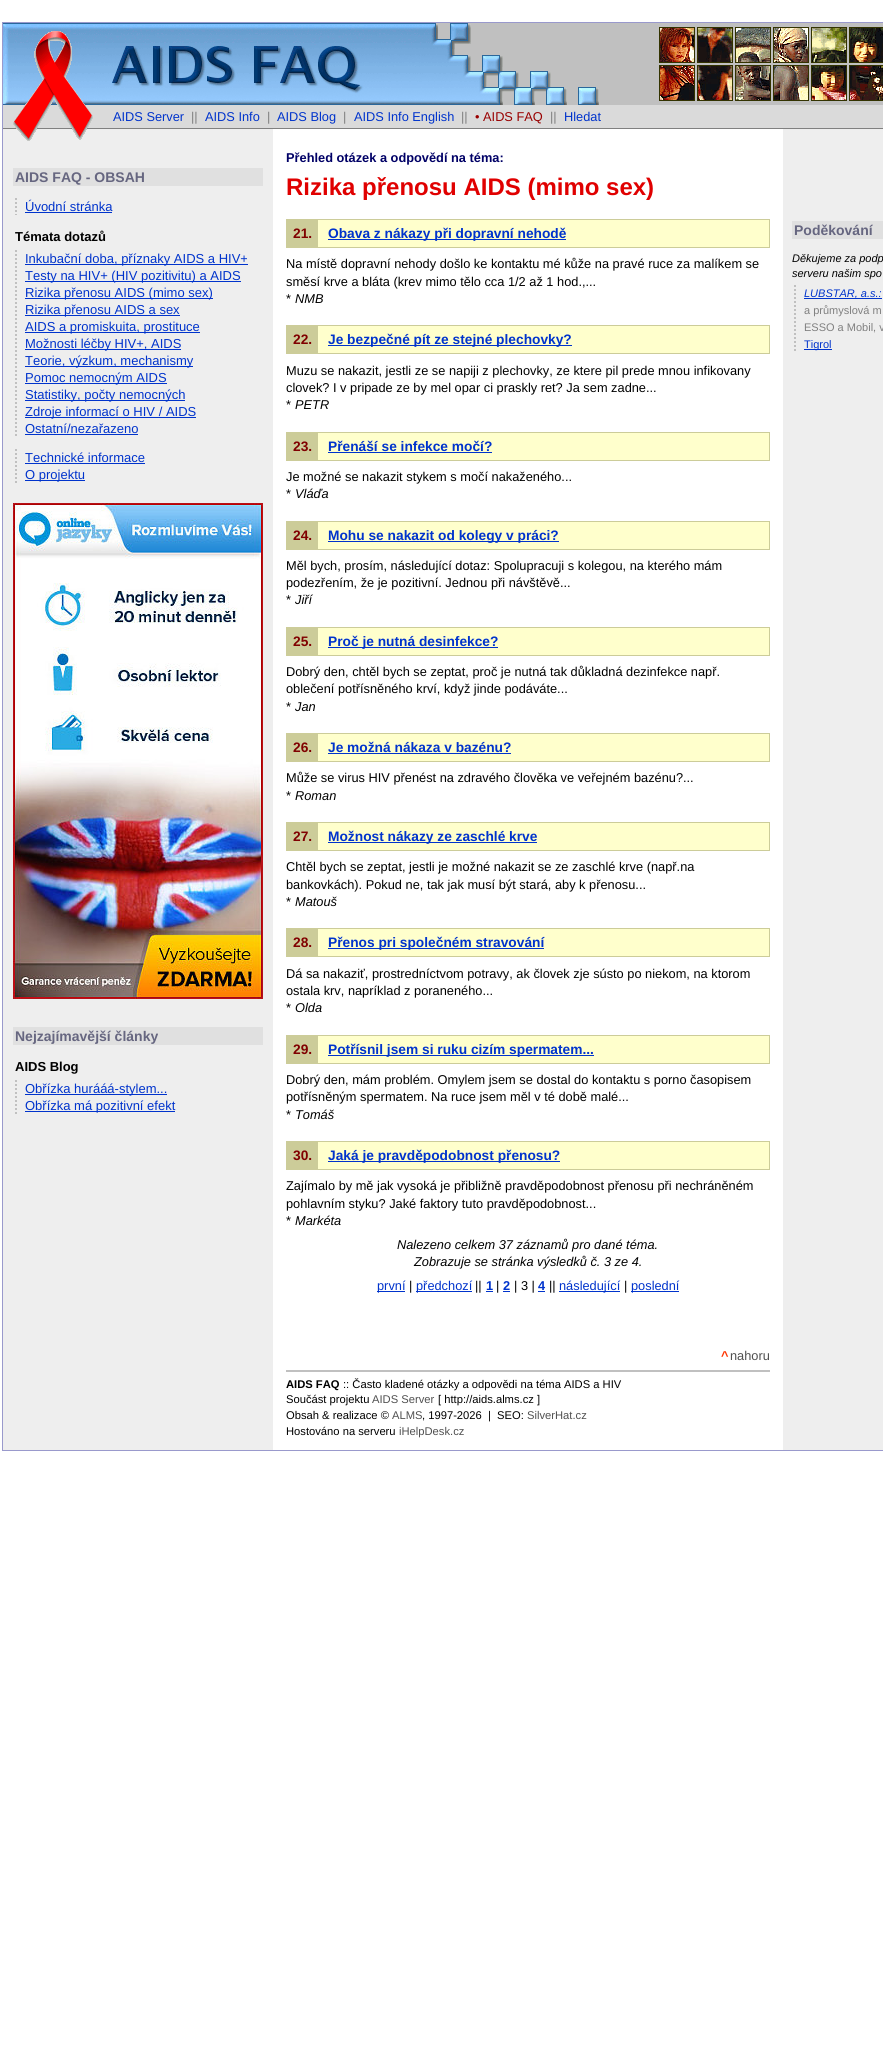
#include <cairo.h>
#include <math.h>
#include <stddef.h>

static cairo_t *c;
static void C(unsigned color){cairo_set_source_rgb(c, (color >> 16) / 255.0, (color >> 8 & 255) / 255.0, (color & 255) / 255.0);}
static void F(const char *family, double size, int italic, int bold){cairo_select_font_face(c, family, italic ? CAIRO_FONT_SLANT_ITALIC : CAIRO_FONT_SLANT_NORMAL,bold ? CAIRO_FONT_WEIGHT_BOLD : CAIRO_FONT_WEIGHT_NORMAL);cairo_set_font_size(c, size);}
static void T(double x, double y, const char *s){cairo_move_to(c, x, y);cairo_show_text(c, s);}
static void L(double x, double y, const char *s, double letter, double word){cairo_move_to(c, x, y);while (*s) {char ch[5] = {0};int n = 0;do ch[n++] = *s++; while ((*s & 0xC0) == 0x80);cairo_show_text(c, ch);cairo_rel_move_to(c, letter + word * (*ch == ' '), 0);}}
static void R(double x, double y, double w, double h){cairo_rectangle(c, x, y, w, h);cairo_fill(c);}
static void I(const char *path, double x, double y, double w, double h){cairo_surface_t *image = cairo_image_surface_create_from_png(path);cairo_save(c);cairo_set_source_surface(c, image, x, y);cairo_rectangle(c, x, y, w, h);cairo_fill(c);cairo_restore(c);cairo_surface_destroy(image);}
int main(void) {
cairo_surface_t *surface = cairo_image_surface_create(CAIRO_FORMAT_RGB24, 883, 2065);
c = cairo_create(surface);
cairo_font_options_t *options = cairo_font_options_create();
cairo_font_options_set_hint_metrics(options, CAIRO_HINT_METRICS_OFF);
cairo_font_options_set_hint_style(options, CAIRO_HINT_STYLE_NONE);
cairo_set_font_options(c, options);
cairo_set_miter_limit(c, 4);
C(0xffffff);
cairo_paint(c);
cairo_rectangle(c,2.5,22.5,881,1428);
C(0x9999cc);
cairo_set_line_width(c,1);
cairo_stroke(c);
I("1.png",3,129,880,1321);
C(0xc0c0c0);
R(436,23,447,82);
I("2.png",3,23,596,82);
I("3.png",659,27,224,74);
C(0xdadada);
R(3,105,880,23);
C(0x808080);
R(3,128,880,1);
I("4.png",13,31,80,110);
F("Liberation Sans",12.8,0,0);
C(0x0033cc);
T(113,121,"AIDS Server");
C(0x808080);
T(191,121,"||");
C(0x0033cc);
T(205,121,"AIDS Info");
C(0x808080);
T(267,121,"|");
C(0x0033cc);
T(277,121,"AIDS Blog");
C(0x808080);
T(343,121,"|");
C(0x0033cc);
T(354,121,"AIDS Info English");
C(0x808080);
T(461,121,"||");
C(0x990000);
T(475,121,"• AIDS FAQ");
C(0x808080);
T(550,121,"||");
C(0x0033cc);
T(564,121,"Hledat");
C(0xe0e0e0);
R(13,168,250,18);
F("Liberation Sans",14,0,1);
C(0x666680);
T(15,182,"AIDS FAQ - OBSAH");
cairo_new_path(c);
cairo_move_to(c,16,198);
cairo_line_to(c,16,215);
C(0xc0c0c0);
cairo_set_line_width(c,2);
cairo_set_dash(c,(double[]){2,2},2,0);
cairo_stroke(c);
F("Liberation Sans",13,0,0);
C(0x0033cc);
T(25,211,"Úvodní stránka");
R(25,212,87,1);
F("Liberation Sans",13,0,1);
C(0x000000);
T(15,241,"Témata dotazů");
cairo_new_path(c);
cairo_move_to(c,16,250);
cairo_line_to(c,16,437);
C(0xc0c0c0);
cairo_stroke(c);
C(0x0033cc);
R(25,264,223,1);
F("Liberation Sans",13,0,0);
T(25,263,"Inkubační doba, příznaky AIDS a HIV+");
R(25,281,216,1);
T(25,280,"Testy na HIV+ (HIV pozitivitu) a AIDS");
R(25,298,188,1);
T(25,297,"Rizika přenosu AIDS (mimo sex)");
R(25,315,155,1);
T(25,314,"Rizika přenosu AIDS a sex");
R(25,332,175,1);
T(25,331,"AIDS a promiskuita, prostituce");
R(25,349,156,1);
T(25,348,"Možnosti léčby HIV+, AIDS");
R(25,366,168,1);
T(25,365,"Teorie, výzkum, mechanismy");
R(25,383,142,1);
T(25,382,"Pomoc nemocným AIDS");
R(25,400,160,1);
T(25,399,"Statistiky, počty nemocných");
R(25,417,171,1);
T(25,416,"Zdroje informací o HIV / AIDS");
T(25,433,"Ostatní/nezařazeno");
R(25,434,113,1);
cairo_new_path(c);
cairo_move_to(c,16,449);
cairo_line_to(c,16,483);
C(0xc0c0c0);
cairo_stroke(c);
C(0x0033cc);
T(25,462,"Technické informace");
R(25,463,120,1);
R(25,480,60,1);
T(25,479,"O projektu");
I("5.png",13,503,250,496);
C(0xe0e0e0);
R(13,1027,250,18);
F("Liberation Sans",14,0,1);
C(0x666680);
T(15,1041,"Nejzajímavější články");
F("Liberation Sans",13,0,1);
C(0x000000);
T(15,1071,"AIDS Blog");
cairo_new_path(c);
cairo_move_to(c,16,1080);
cairo_line_to(c,16,1114);
C(0xc0c0c0);
cairo_stroke(c);
C(0x0033cc);
R(25,1094,142,1);
F("Liberation Sans",13,0,0);
T(25,1093,"Obřízka hurááá-stylem...");
R(25,1111,150,1);
T(25,1110,"Obřízka má pozitivní efekt");
F("Liberation Sans",12.8,0,1);
C(0x000066);
T(286,162,"Přehled otázek a odpovědí na téma:");
F("Liberation Sans",24,0,1);
C(0xe00000);
T(286,195,"Rizika přenosu AIDS (mimo sex)");
C(0xffffcc);
R(318,220,451,27);
cairo_rectangle(c,286.5,219.5,483,28);
C(0xcccc99);
cairo_set_line_width(c,1);
cairo_set_dash(c,NULL,0,0);
cairo_stroke(c);
R(287,220,31,27);
F("Liberation Sans",13.75,0,1);
C(0x800000);
T(293,238,"21.");
C(0x0033cc);
R(328,239,238,1);
T(328,238,"Obava z nákazy při dopravní nehodě");
F("Liberation Sans",12.8,0,0);
C(0x000000);
T(286,268,"Na místě dopravní nehody došlo ke kontaktu mé kůže na pravé ruce za malíkem se");
T(286,286,"směsí krve a bláta (krev mimo tělo cca 1/2 až 1 hod.,...");
T(286,303,"*");
F("Liberation Sans",12.8,1,0);
T(295,303,"NMB");
C(0xffffcc);
R(318,326,451,27);
cairo_rectangle(c,286.5,325.5,483,28);
C(0xcccc99);
cairo_stroke(c);
R(287,326,31,27);
F("Liberation Sans",13.75,0,1);
C(0x800000);
T(293,344,"22.");
C(0x0033cc);
R(328,345,244,1);
T(328,344,"Je bezpečné pít ze stejné plechovky?");
F("Liberation Sans",12.8,0,0);
C(0x000000);
T(286,375,"Muzu se nakazit, jestli ze se napiji z plechovky, ze ktere pil prede mnou infikovany");
T(286,392,"clovek? I v pripade ze by mel opar ci praskly ret? Ja sem zadne...");
T(286,409,"*");
F("Liberation Sans",12.8,1,0);
T(295,409,"PETR");
C(0xffffcc);
R(318,433,451,27);
cairo_rectangle(c,286.5,432.5,483,28);
C(0xcccc99);
cairo_stroke(c);
R(287,433,31,27);
F("Liberation Sans",13.75,0,1);
C(0x800000);
T(293,451,"23.");
C(0x0033cc);
T(328,451,"Přenáší se infekce močí?");
R(328,452,164,1);
F("Liberation Sans",12.8,0,0);
C(0x000000);
T(286,481,"Je možné se nakazit stykem s močí nakaženého...");
T(286,498,"*");
F("Liberation Sans",12.8,1,0);
T(295,498,"Vláďa");
C(0xffffcc);
R(318,522,451,27);
cairo_rectangle(c,286.5,521.5,483,28);
C(0xcccc99);
cairo_stroke(c);
R(287,522,31,27);
F("Liberation Sans",13.75,0,1);
C(0x800000);
T(293,540,"24.");
C(0x0033cc);
R(328,541,231,1);
T(328,540,"Mohu se nakazit od kolegy v práci?");
F("Liberation Sans",12.8,0,0);
C(0x000000);
T(286,570,"Měl bych, prosím, následující dotaz: Spolupracuji s kolegou, na kterého mám");
T(286,587,"podezřením, že je pozitivní. Jednou při návštěvě...");
T(286,604,"*");
F("Liberation Sans",12.8,1,0);
T(295,604,"Jiří");
C(0xffffcc);
R(318,628,451,27);
cairo_rectangle(c,286.5,627.5,483,28);
C(0xcccc99);
cairo_stroke(c);
R(287,628,31,27);
F("Liberation Sans",13.75,0,1);
C(0x800000);
T(293,646,"25.");
C(0x0033cc);
R(328,647,170,1);
T(328,646,"Proč je nutná desinfekce?");
F("Liberation Sans",12.8,0,0);
C(0x000000);
T(286,676,"Dobrý den, chtěl bych se zeptat, proč je nutná tak důkladná dezinfekce např.");
T(286,693,"oblečení potřísněného krví, když jinde podáváte...");
T(286,711,"*");
F("Liberation Sans",12.8,1,0);
T(295,711,"Jan");
C(0xffffcc);
R(318,734,451,27);
cairo_rectangle(c,286.5,733.5,483,28);
C(0xcccc99);
cairo_stroke(c);
R(287,734,31,27);
F("Liberation Sans",13.75,0,1);
C(0x800000);
T(293,752,"26.");
C(0x0033cc);
T(328,752,"Je možná nákaza v bazénu?");
R(328,753,183,1);
F("Liberation Sans",12.8,0,0);
C(0x000000);
T(286,782,"Může se virus HIV přenést na zdravého člověka ve veřejném bazénu?...");
T(286,800,"*");
F("Liberation Sans",12.8,1,0);
T(295,800,"Roman");
C(0xffffcc);
R(318,823,451,27);
cairo_rectangle(c,286.5,822.5,483,28);
C(0xcccc99);
cairo_stroke(c);
R(287,823,31,27);
F("Liberation Sans",13.75,0,1);
C(0x800000);
T(293,841,"27.");
C(0x0033cc);
R(328,842,209,1);
T(328,841,"Možnost nákazy ze zaschlé krve");
F("Liberation Sans",12.8,0,0);
C(0x000000);
T(286,871,"Chtěl bych se zeptat, jestli je možné nakazit se ze zaschlé krve (např.na");
T(286,889,"bankovkách). Pokud ne, tak jak musí být stará, aby k přenosu...");
T(286,906,"*");
F("Liberation Sans",12.8,1,0);
T(295,906,"Matouš");
C(0xffffcc);
R(318,929,451,27);
cairo_rectangle(c,286.5,928.5,483,28);
C(0xcccc99);
cairo_stroke(c);
R(287,929,31,27);
F("Liberation Sans",13.75,0,1);
C(0x800000);
T(293,947,"28.");
C(0x0033cc);
R(328,948,216,1);
T(328,947,"Přenos pri společném stravování");
F("Liberation Sans",12.8,0,0);
C(0x000000);
T(286,978,"Dá sa nakaziť, prostredníctvom potravy, ak človek zje sústo po niekom, na ktorom");
T(286,995,"ostala krv, napríklad z poraneného...");
T(286,1012,"*");
F("Liberation Sans",12.8,1,0);
T(295,1012,"Olda");
C(0xffffcc);
R(318,1036,451,27);
cairo_rectangle(c,286.5,1035.5,483,28);
C(0xcccc99);
cairo_stroke(c);
R(287,1036,31,27);
F("Liberation Sans",13.75,0,1);
C(0x800000);
T(293,1054,"29.");
C(0x0033cc);
R(328,1055,266,1);
T(328,1054,"Potřísnil jsem si ruku cizím spermatem...");
F("Liberation Sans",12.8,0,0);
C(0x000000);
T(286,1084,"Dobrý den, mám problém. Omylem jsem se dostal do kontaktu s porno časopisem");
T(286,1101,"potřísněným spermatem. Na ruce jsem měl v té době malé...");
T(286,1119,"*");
F("Liberation Sans",12.8,1,0);
T(295,1119,"Tomáš");
C(0xffffcc);
R(318,1142,451,27);
cairo_rectangle(c,286.5,1141.5,483,28);
C(0xcccc99);
cairo_stroke(c);
R(287,1142,31,27);
F("Liberation Sans",13.75,0,1);
C(0x800000);
T(293,1160,"30.");
C(0x0033cc);
R(328,1161,232,1);
T(328,1160,"Jaká je pravděpodobnost přenosu?");
F("Liberation Sans",12.8,0,0);
C(0x000000);
T(286,1190,"Zajímalo by mě jak vysoká je přibližně pravděpodobnost přenosu při nechráněném");
T(286,1208,"pohlavním styku? Jaké faktory tuto pravděpodobnost...");
T(286,1225,"*");
F("Liberation Sans",12.8,1,0);
T(295,1225,"Markéta");
T(397,1249,"Nalezeno celkem 37 záznamů pro dané téma.");
T(414,1266,"Zobrazuje se stránka výsledků č. 3 ze 4.");
C(0x0033cc);
R(377,1291,28,1);
F("Liberation Sans",12.8,0,0);
T(377,1290,"první");
C(0x000000);
T(409,1290,"|");
C(0x0033cc);
R(416,1291,56,1);
T(416,1290,"předchozí");
C(0x000000);
T(475,1290,"||");
F("Liberation Sans",12.8,0,1);
C(0x0033cc);
T(486,1290,"1");
R(486,1291,7,1);
F("Liberation Sans",12.8,0,0);
C(0x000000);
T(496,1290,"|");
F("Liberation Sans",12.8,0,1);
C(0x0033cc);
T(503,1290,"2");
R(503,1291,7,1);
F("Liberation Sans",12.8,0,0);
C(0x000000);
T(514,1290,"| 3 |");
F("Liberation Sans",12.8,0,1);
C(0x0033cc);
T(538,1290,"4");
R(538,1291,7,1);
F("Liberation Sans",12.8,0,0);
C(0x000000);
T(549,1290,"||");
C(0x0033cc);
R(559,1291,61,1);
T(559,1290,"následující");
C(0x000000);
T(624,1290,"|");
C(0x0033cc);
R(631,1291,48,1);
T(631,1290,"poslední");
C(0xe0e0e0);
R(792,221,91,18);
F("Liberation Sans",14,0,1);
C(0x666680);
T(794,235,"Poděkování");
F("Liberation Sans",11,1,0);
C(0x000000);
T(792,262,"Děkujeme za podp");
T(792,277,"serveru našim spo");
cairo_new_path(c);
cairo_move_to(c,795,285);
cairo_line_to(c,795,353);
C(0xc0c0c0);
cairo_set_line_width(c,2);
cairo_set_dash(c,(double[]){2,2},2,0);
cairo_stroke(c);
C(0x0033cc);
R(804,298,78,1);
T(804,297,"LUBSTAR, a.s.:");
F("Liberation Sans",11,0,0);
C(0x808080);
T(804,314,"a průmyslová m");
T(804,331,"ESSO a Mobil, v");
C(0x0033cc);
R(804,349,28,1);
T(804,348,"Tigrol");
F("Liberation Sans",12.8,0,1);
C(0xff3300);
L(721,1360,"^",-1,0);
F("Liberation Sans",12.8,0,0);
C(0x505050);
T(730,1360,"nahoru");
C(0xc0c0c0);
R(286,1370,484,2);
F("Liberation Sans",11.2,0,1);
C(0x000000);
T(286,1388,"AIDS FAQ");
F("Liberation Sans",11.2,0,0);
T(343,1388,":: Často kladené otázky a odpovědi na téma AIDS a HIV");
T(286,1403,"Součást projektu");
C(0x505050);
T(372,1403,"AIDS Server");
C(0x000000);
T(438,1403,"[ http://aids.alms.cz ]");
T(286,1419,"Obsah & realizace ©");
C(0x505050);
T(392,1419,"ALMS");
C(0x000000);
T(422,1419,", 1997-2026");
T(488,1419,"|");
T(497,1419,"SEO:");
C(0x505050);
T(527,1419,"SilverHat.cz");
C(0x000000);
T(286,1435,"Hostováno na serveru");
C(0x505050);
T(399,1435,"iHelpDesk.cz");
cairo_surface_write_to_png(surface, "o.png");
cairo_font_options_destroy(options);
cairo_destroy(c);
cairo_surface_destroy(surface);
return 0;
}
